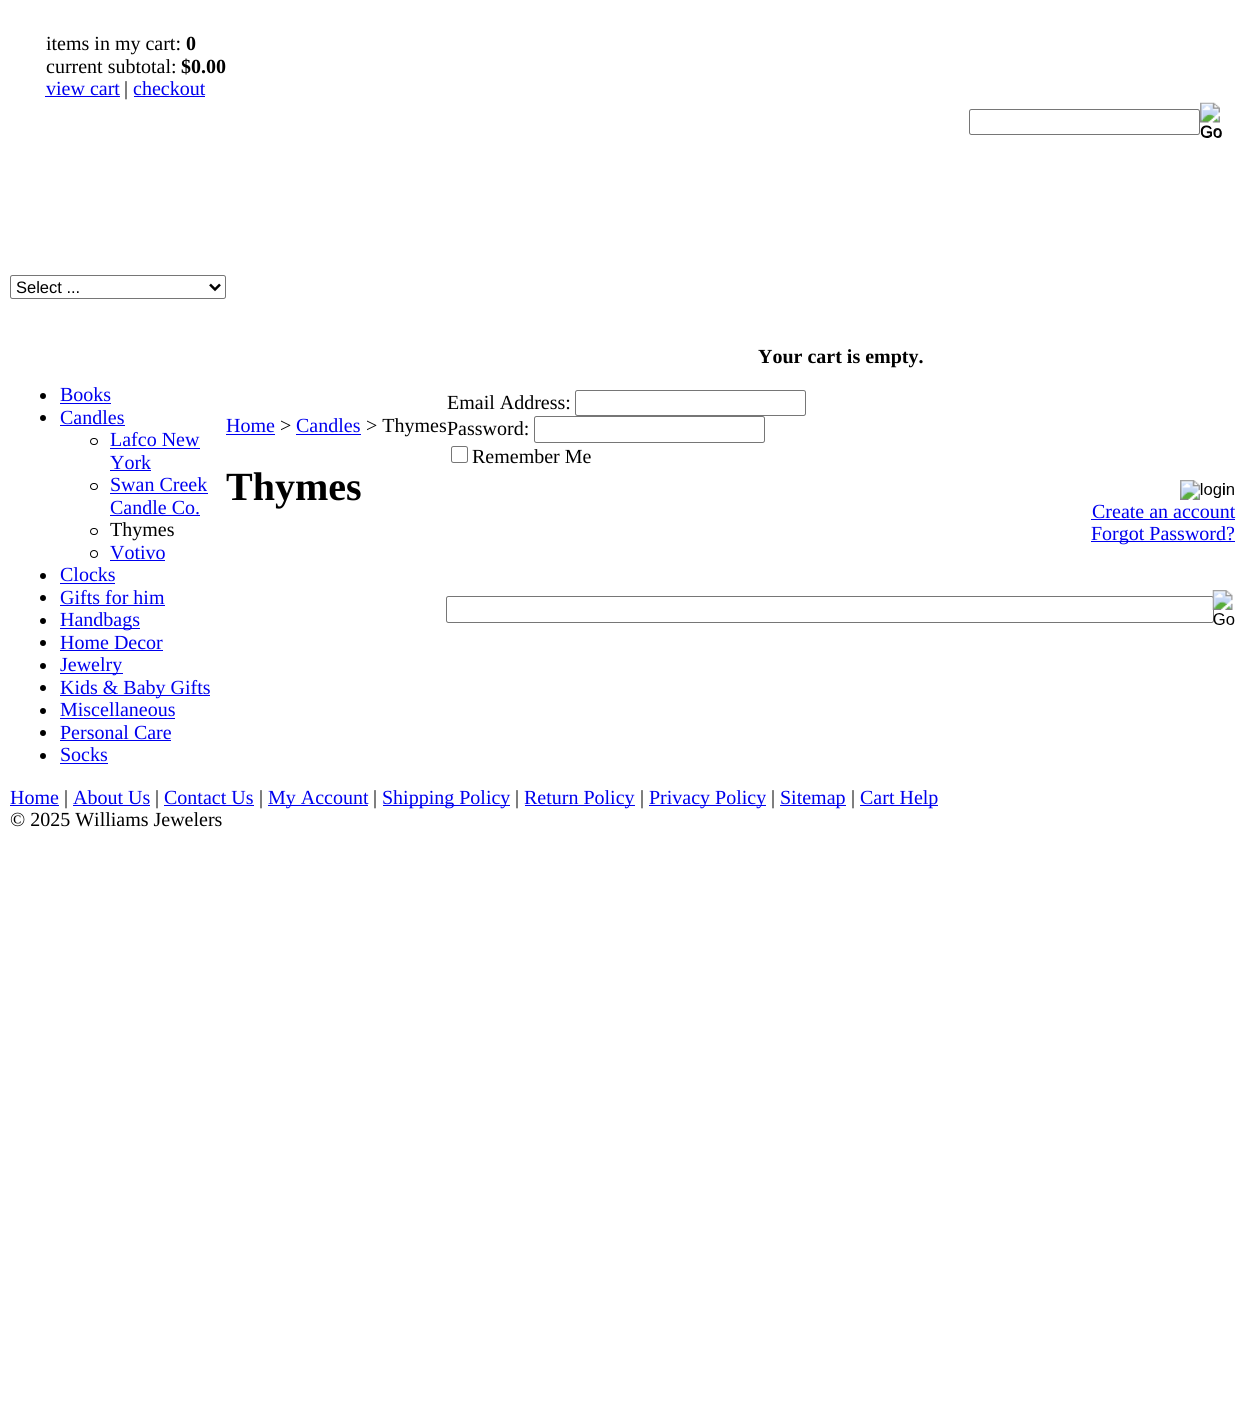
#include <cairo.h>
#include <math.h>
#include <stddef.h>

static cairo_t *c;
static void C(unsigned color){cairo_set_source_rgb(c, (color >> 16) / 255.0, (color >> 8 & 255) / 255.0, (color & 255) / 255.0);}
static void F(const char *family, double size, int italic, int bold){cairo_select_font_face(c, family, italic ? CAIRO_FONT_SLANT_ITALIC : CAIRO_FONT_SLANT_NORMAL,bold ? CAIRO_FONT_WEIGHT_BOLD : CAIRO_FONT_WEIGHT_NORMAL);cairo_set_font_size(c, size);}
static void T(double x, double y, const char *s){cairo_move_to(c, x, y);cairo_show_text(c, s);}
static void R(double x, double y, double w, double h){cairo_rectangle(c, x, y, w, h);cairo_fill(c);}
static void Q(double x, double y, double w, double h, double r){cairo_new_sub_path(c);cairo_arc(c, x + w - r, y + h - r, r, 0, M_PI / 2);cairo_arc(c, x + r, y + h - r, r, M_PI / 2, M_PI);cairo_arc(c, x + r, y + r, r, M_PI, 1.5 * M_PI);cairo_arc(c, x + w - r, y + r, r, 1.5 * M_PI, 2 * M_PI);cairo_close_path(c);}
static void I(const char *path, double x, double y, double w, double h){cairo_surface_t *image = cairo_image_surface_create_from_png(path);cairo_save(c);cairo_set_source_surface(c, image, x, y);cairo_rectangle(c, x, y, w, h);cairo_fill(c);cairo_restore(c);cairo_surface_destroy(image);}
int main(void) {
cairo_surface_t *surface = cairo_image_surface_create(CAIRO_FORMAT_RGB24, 1245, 1420);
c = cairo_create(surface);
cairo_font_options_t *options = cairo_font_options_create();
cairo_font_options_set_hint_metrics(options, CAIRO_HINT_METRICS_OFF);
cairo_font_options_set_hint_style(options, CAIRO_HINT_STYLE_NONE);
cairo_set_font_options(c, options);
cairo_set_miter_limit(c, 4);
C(0xffffff);
cairo_paint(c);
F("Liberation Serif",20,0,0);
C(0x000000);
T(46,50,"items in my cart:");
F("Liberation Serif",20,0,1);
T(186,50,"0");
F("Liberation Serif",20,0,0);
T(46,73,"current subtotal:");
F("Liberation Serif",20,0,1);
T(181,73,"$0.00");
F("Liberation Serif",20,0,0);
C(0x0000ee);
T(46,95,"view cart");
R(45,96,75,1);
C(0x000000);
T(124,95,"|");
C(0x0000ee);
T(133,95,"checkout");
R(134,96,71,1);
Q(969.5,109.5,230,25,2);
C(0x767676);
cairo_set_line_width(c,1);
cairo_stroke(c);
I("1.png",1200,102,22,36);
F("Liberation Sans",16.5,0,0);
C(0x000000);
T(1200,137,"Go");
Q(10.5,275.5,215,23,2);
C(0x767676);
cairo_stroke(c);
cairo_new_path(c);
cairo_move_to(c,210,284.5);
cairo_line_to(c,215,289.5);
cairo_line_to(c,220,284.5);
C(0x000000);
cairo_set_line_width(c,2.5);
cairo_stroke(c);
T(16,293,"Select ...");
cairo_new_path(c);
cairo_arc(c,43,396,3,0,2 * M_PI);
cairo_fill(c);
F("Liberation Serif",20,0,0);
C(0x0000ee);
T(60,401,"Books");
R(60,403,51,1);
C(0x000000);
cairo_new_path(c);
cairo_arc(c,43,418,3,0,2 * M_PI);
cairo_fill(c);
C(0x0000ee);
T(60,424,"Candles");
R(60,425,65,1);
Q(90.5,438.5,7,6,3);
C(0x000000);
cairo_set_line_width(c,1);
cairo_stroke(c);
C(0x0000ee);
T(110,446,"Lafco New");
R(110,448,90,1);
T(110,469,"York");
R(110,470,41,1);
Q(90.5,483.5,7,6,3);
C(0x000000);
cairo_stroke(c);
C(0x0000ee);
T(110,491,"Swan Creek");
R(110,493,98,1);
T(110,514,"Candle Co.");
R(110,515,90,1);
Q(90.5,528.5,7,6,3);
C(0x000000);
cairo_stroke(c);
T(110,536,"Thymes");
cairo_new_path(c);
cairo_arc(c,94,554,3.5,0,2 * M_PI);
cairo_stroke(c);
C(0x0000ee);
T(110,559,"Votivo");
R(110,560,55,1);
C(0x000000);
cairo_new_path(c);
cairo_arc(c,43,576,3,0,2 * M_PI);
cairo_fill(c);
C(0x0000ee);
T(60,581,"Clocks");
R(60,583,55,1);
C(0x000000);
cairo_new_path(c);
cairo_arc(c,43,598,3,0,2 * M_PI);
cairo_fill(c);
C(0x0000ee);
T(60,604,"Gifts for him");
R(60,605,105,1);
C(0x000000);
cairo_new_path(c);
cairo_arc(c,43,621,3,0,2 * M_PI);
cairo_fill(c);
C(0x0000ee);
R(60,628,80,1);
T(60,626,"Handbags");
C(0x000000);
cairo_new_path(c);
cairo_arc(c,43,643,3,0,2 * M_PI);
cairo_fill(c);
C(0x0000ee);
T(60,649,"Home Decor");
R(60,650,103,1);
C(0x000000);
cairo_new_path(c);
cairo_arc(c,43,666,3,0,2 * M_PI);
cairo_fill(c);
C(0x0000ee);
R(60,673,63,1);
T(60,671,"Jewelry");
C(0x000000);
cairo_new_path(c);
cairo_arc(c,43,688,3,0,2 * M_PI);
cairo_fill(c);
C(0x0000ee);
R(60,695,150,1);
T(60,694,"Kids & Baby Gifts");
C(0x000000);
cairo_new_path(c);
cairo_arc(c,43,711,3,0,2 * M_PI);
cairo_fill(c);
C(0x0000ee);
T(60,716,"Miscellaneous");
R(60,718,115,1);
C(0x000000);
cairo_new_path(c);
cairo_arc(c,43,733,3,0,2 * M_PI);
cairo_fill(c);
C(0x0000ee);
T(60,739,"Personal Care");
R(60,740,111,1);
C(0x000000);
cairo_new_path(c);
cairo_arc(c,43,756,3,0,2 * M_PI);
cairo_fill(c);
C(0x0000ee);
T(60,761,"Socks");
R(60,763,48,1);
T(226,432,"Home");
R(226,434,49,1);
C(0x000000);
T(280,432,">");
C(0x0000ee);
T(296,432,"Candles");
R(296,434,65,1);
C(0x000000);
T(366,432,"> Thymes");
F("Liberation Serif",40,0,1);
T(226,500,"Thymes");
F("Liberation Serif",20,0,1);
T(758,363,"Your cart is empty.");
F("Liberation Serif",20,0,0);
T(447,409,"Email Address:");
Q(575.5,390.5,230,25,2);
C(0x767676);
cairo_stroke(c);
C(0x000000);
T(447,435,"Password:");
Q(534.5,416.5,230,26,2);
C(0x767676);
cairo_stroke(c);
Q(451.5,446.5,16,16,2);
cairo_stroke(c);
C(0x000000);
T(472,463,"Remember Me");
I("2.png",1180,480,54,20);
F("Liberation Sans",16.5,0,0);
T(1222,495,"i");
F("Liberation Serif",20,0,0);
C(0x0000ee);
T(1092,518,"Create an account");
R(1091,519,144,1);
R(1091,541,144,1);
T(1091,540,"Forgot Password?");
Q(446.5,596.5,767,26,2);
C(0x767676);
cairo_stroke(c);
I("3.png",1212,590,23,35);
C(0x0000ee);
T(10,804,"Home");
R(10,805,49,1);
C(0x000000);
T(64,804,"|");
C(0x0000ee);
T(73,804,"About Us");
R(73,805,77,1);
C(0x000000);
T(155,804,"|");
C(0x0000ee);
T(164,804,"Contact Us");
R(164,805,90,1);
C(0x000000);
T(259,804,"|");
C(0x0000ee);
R(268,805,100,1);
T(268,804,"My Account");
C(0x000000);
T(373,804,"|");
C(0x0000ee);
R(383,805,127,1);
T(382,804,"Shipping Policy");
C(0x000000);
T(515,804,"|");
C(0x0000ee);
R(525,805,110,1);
T(524,804,"Return Policy");
C(0x000000);
T(640,804,"|");
C(0x0000ee);
R(649,805,117,1);
T(649,804,"Privacy Policy");
C(0x000000);
T(771,804,"|");
C(0x0000ee);
R(780,805,66,1);
T(780,804,"Sitemap");
C(0x000000);
T(851,804,"|");
C(0x0000ee);
R(860,805,78,1);
T(860,804,"Cart Help");
C(0x000000);
T(10,826,"© 2025 Williams Jewelers");
cairo_surface_write_to_png(surface, "o.png");
cairo_font_options_destroy(options);
cairo_destroy(c);
cairo_surface_destroy(surface);
return 0;
}
